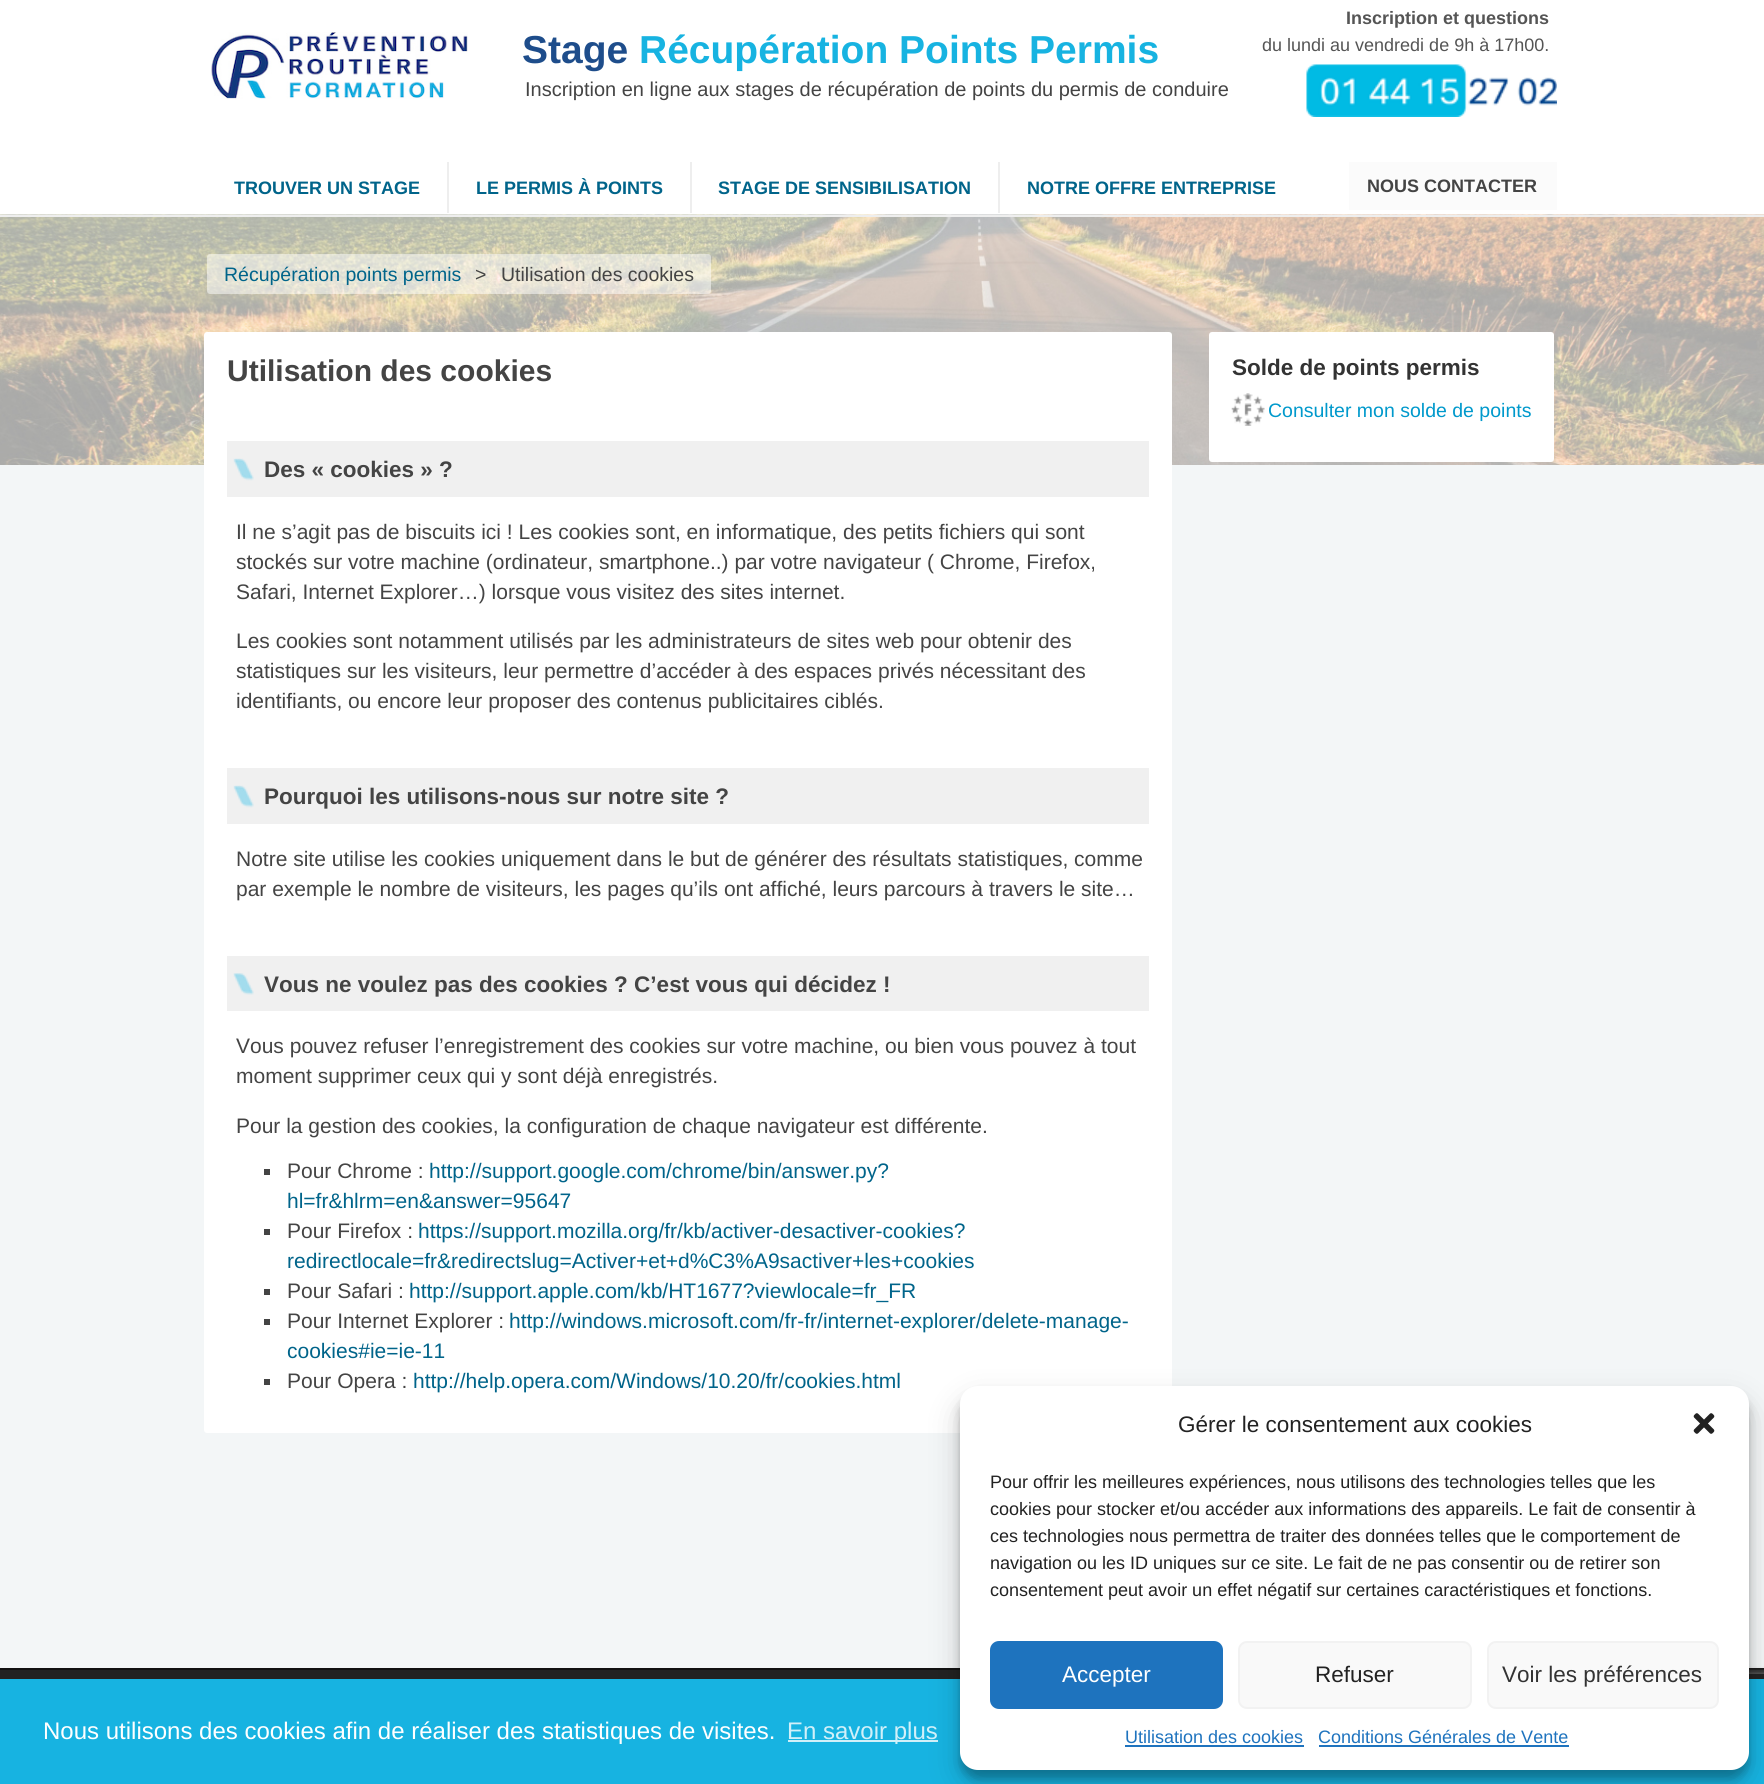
#include <cairo.h>
#include <math.h>
#include <stddef.h>

static cairo_t *c;
static void C(unsigned color){cairo_set_source_rgb(c, (color >> 16) / 255.0, (color >> 8 & 255) / 255.0, (color & 255) / 255.0);}
static void F(const char *family, double size, int italic, int bold){cairo_select_font_face(c, family, italic ? CAIRO_FONT_SLANT_ITALIC : CAIRO_FONT_SLANT_NORMAL,bold ? CAIRO_FONT_WEIGHT_BOLD : CAIRO_FONT_WEIGHT_NORMAL);cairo_set_font_size(c, size);}
static void T(double x, double y, const char *s){cairo_move_to(c, x, y);cairo_show_text(c, s);}
static void R(double x, double y, double w, double h){cairo_rectangle(c, x, y, w, h);cairo_fill(c);}
static void Q(double x, double y, double w, double h, double r){cairo_new_sub_path(c);cairo_arc(c, x + w - r, y + h - r, r, 0, M_PI / 2);cairo_arc(c, x + r, y + h - r, r, M_PI / 2, M_PI);cairo_arc(c, x + r, y + r, r, M_PI, 1.5 * M_PI);cairo_arc(c, x + w - r, y + r, r, 1.5 * M_PI, 2 * M_PI);cairo_close_path(c);}
static void S(double x, double y, double w, double h, double r, double blur, double alpha){cairo_push_group_with_content(c, CAIRO_CONTENT_ALPHA);cairo_set_operator(c, CAIRO_OPERATOR_SOURCE);for (int i = 15; i >= -15 && fmin(w, h) + blur * i / 3 > 0; i -= 2) {double e = blur * i / 6;cairo_set_source_rgba(c, 0, 0, 0, alpha * erfc((i - 1) / 8.5) / 2);Q(x - e, y - e, w + 2 * e, h + 2 * e, fmax(0, fmin(r + e + blur * .6, fmin(w, h) / 2 + e)));cairo_fill(c);}cairo_pattern_t *soft = cairo_pop_group(c);cairo_mask(c, soft);cairo_pattern_destroy(soft);}
static void I(const char *path, double x, double y, double w, double h){cairo_surface_t *image = cairo_image_surface_create_from_png(path);cairo_save(c);cairo_set_source_surface(c, image, x, y);cairo_rectangle(c, x, y, w, h);cairo_fill(c);cairo_restore(c);cairo_surface_destroy(image);}
int main(void) {
cairo_surface_t *surface = cairo_image_surface_create(CAIRO_FORMAT_RGB24, 1764, 1784);
c = cairo_create(surface);
cairo_font_options_t *options = cairo_font_options_create();
cairo_font_options_set_hint_metrics(options, CAIRO_HINT_METRICS_OFF);
cairo_font_options_set_hint_style(options, CAIRO_HINT_STYLE_NONE);
cairo_set_font_options(c, options);
cairo_set_miter_limit(c, 4);
C(0xf3f6f7);
cairo_paint(c);
C(0xffffff);
R(0,0,1764,215);
I("1.png",1306,64,251,53);
I("2.png",211,32,257,67);
F("Liberation Sans",39,0,1);
C(0x1e4d8b);
T(522,63,"Stage");
C(0x17b3e1);
T(639,63,"Récupération Points Permis");
F("Liberation Sans",20,0,0);
C(0x444444);
T(525,96,"Inscription en ligne aux stages de récupération de points du permis de conduire");
F("Liberation Sans",18,0,1);
C(0x555555);
T(1346,24,"Inscription et questions");
F("Liberation Sans",18,0,0);
T(1262,51,"du lundi au vendredi de 9h à 17h00.");
F("Liberation Sans",18,0,1);
C(0x00648a);
T(234,194,"TROUVER UN STAGE");
C(0xeeeeee);
R(447,162,2,51);
C(0x00648a);
T(476,194,"LE PERMIS À POINTS");
C(0xeeeeee);
R(690,162,2,51);
C(0x00648a);
T(718,194,"STAGE DE SENSIBILISATION");
C(0xeeeeee);
R(998,162,2,51);
C(0x00648a);
T(1027,194,"NOTRE OFFRE ENTREPRISE");
C(0xfbfbfb);
R(1349,162,208,48);
C(0x444444);
T(1367,192,"NOUS CONTACTER");
I("3.png",0,214,1764,251);
C(0xeeeeee);
R(0,215,1764,2);
cairo_set_source_rgba(c,1,1,1,0.5);
Q(207,254,504,40,3);
cairo_fill(c);
F("Liberation Sans",19.5,0,0);
C(0x00648a);
T(224,281,"Récupération points permis");
C(0x444444);
T(475,281,">");
T(501,281,"Utilisation des cookies");
C(0xffffff);
Q(204,332,968,1101,3);
cairo_fill(c);
F("Liberation Sans",30,0,1);
C(0x444444);
T(227,381,"Utilisation des cookies");
C(0xf0f0f0);
R(227,441,922,56);
I("4.png",233,458,21,23);
F("Liberation Sans",22.5,0,1);
C(0x444444);
T(264,477,"Des « cookies » ?");
F("Liberation Sans",21,0,0);
T(236,539,"Il ne s’agit pas de biscuits ici ! Les cookies sont, en informatique, des petits fichiers qui sont");
T(236,569,"stockés sur votre machine (ordinateur, smartphone..) par votre navigateur ( Chrome, Firefox,");
T(236,599,"Safari, Internet Explorer…) lorsque vous visitez des sites internet.");
T(236,648,"Les cookies sont notamment utilisés par les administrateurs de sites web pour obtenir des");
T(236,678,"statistiques sur les visiteurs, leur permettre d’accéder à des espaces privés nécessitant des");
T(236,708,"identifiants, ou encore leur proposer des contenus publicitaires ciblés.");
C(0xf0f0f0);
R(227,768,922,56);
I("4.png",233,785,21,23);
F("Liberation Sans",22.5,0,1);
C(0x444444);
T(264,804,"Pourquoi les utilisons-nous sur notre site ?");
F("Liberation Sans",21,0,0);
T(236,866,"Notre site utilise les cookies uniquement dans le but de générer des résultats statistiques, comme");
T(236,896,"par exemple le nombre de visiteurs, les pages qu’ils ont affiché, leurs parcours à travers le site…");
C(0xf0f0f0);
R(227,956,922,55);
I("5.png",233,973,21,22);
F("Liberation Sans",22.5,0,1);
C(0x444444);
T(264,992,"Vous ne voulez pas des cookies ? C’est vous qui décidez !");
F("Liberation Sans",21,0,0);
T(236,1053,"Vous pouvez refuser l’enregistrement des cookies sur votre machine, ou bien vous pouvez à tout");
T(236,1083,"moment supprimer ceux qui y sont déjà enregistrés.");
T(236,1133,"Pour la gestion des cookies, la configuration de chaque navigateur est différente.");
R(264,1169,6,6);
T(287,1178,"Pour Chrome :");
C(0x00648a);
T(429,1178,"http://support.google.com/chrome/bin/answer.py?");
T(287,1208,"hl=fr&hlrm=en&answer=95647");
C(0x444444);
R(264,1229,6,6);
T(287,1238,"Pour Firefox :");
C(0x00648a);
T(418,1238,"https://support.mozilla.org/fr/kb/activer-desactiver-cookies?");
T(287,1268,"redirectlocale=fr&redirectslug=Activer+et+d%C3%A9sactiver+les+cookies");
C(0x444444);
R(264,1289,6,6);
T(287,1298,"Pour Safari :");
C(0x00648a);
T(409,1298,"http://support.apple.com/kb/HT1677?viewlocale=fr_FR");
C(0x444444);
R(264,1319,6,6);
T(287,1328,"Pour Internet Explorer :");
C(0x00648a);
T(509,1328,"http://windows.microsoft.com/fr-fr/internet-explorer/delete-manage-");
T(287,1358,"cookies#ie=ie-11");
C(0x444444);
R(264,1379,6,6);
T(287,1388,"Pour Opera :");
C(0x00648a);
T(413,1388,"http://help.opera.com/Windows/10.20/fr/cookies.html");
C(0xffffff);
Q(1209,332,345,130,3);
cairo_fill(c);
F("Liberation Sans",22.5,0,1);
C(0x333333);
T(1232,375,"Solde de points permis");
I("6.png",1231,393,34,33);
F("Liberation Sans",19.5,0,0);
C(0x0099cc);
T(1268,417,"Consulter mon solde de points");
C(0x222222);
R(0,1670,1764,9);
C(0x111111);
R(0,1668,1764,2);
cairo_save(c);
cairo_rectangle(c,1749,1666,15,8);
cairo_clip(c);
C(0x808080);
S(1659,1674,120,90,3,4,1);
cairo_restore(c);
C(0x17b3e1);
R(0,1679,1764,105);
C(0x000000);
S(960,1395,789,384,18,4.5,.23);
C(0xd1f0f9);
R(788,1740,150,2);
C(0x000000);
S(960,1401,789,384,18,15,.19);
C(0xffffff);
Q(960,1386,789,384,18);
cairo_fill(c);
F("Liberation Sans",22.5,0,0);
C(0x222222);
T(1178,1432,"Gérer le consentement aux cookies");
I("7.png",1693,1413,22,21);
F("Liberation Sans",18,0,0);
T(990,1488,"Pour offrir les meilleures expériences, nous utilisons des technologies telles que les");
T(990,1515,"cookies pour stocker et/ou accéder aux informations des appareils. Le fait de consentir à");
T(990,1542,"ces technologies nous permettra de traiter des données telles que le comportement de");
T(990,1569,"navigation ou les ID uniques sur ce site. Le fait de ne pas consentir ou de retirer son");
T(990,1596,"consentement peut avoir un effet négatif sur certaines caractéristiques et fonctions.");
C(0x1e73be);
Q(991,1642,231,66,8);
cairo_fill_preserve(c);
cairo_stroke(c);
F("Liberation Sans",22.5,0,0);
C(0xffffff);
T(1062,1682,"Accepter");
C(0xf9f9f9);
Q(1239,1642,232,66,8);
cairo_fill_preserve(c);
C(0xf2f2f2);
cairo_stroke(c);
C(0x222222);
T(1315,1682,"Refuser");
C(0xf9f9f9);
Q(1488,1642,230,66,8);
cairo_fill_preserve(c);
C(0xf2f2f2);
cairo_stroke(c);
C(0x333333);
T(1502,1682,"Voir les préférences");
F("Liberation Sans",18,0,0);
C(0x1e73be);
T(1125,1743,"Utilisation des cookies");
R(1125,1745,179,2);
T(1318,1743,"Conditions Générales de Vente");
R(1319,1745,250,2);
F("Liberation Sans",24,0,0);
C(0xffffff);
T(43,1739,"Nous utilisons des cookies afin de réaliser des statistiques de visites.");
C(0xd1f0f9);
T(787,1739,"En savoir plus");
cairo_surface_write_to_png(surface, "o.png");
cairo_font_options_destroy(options);
cairo_destroy(c);
cairo_surface_destroy(surface);
return 0;
}
